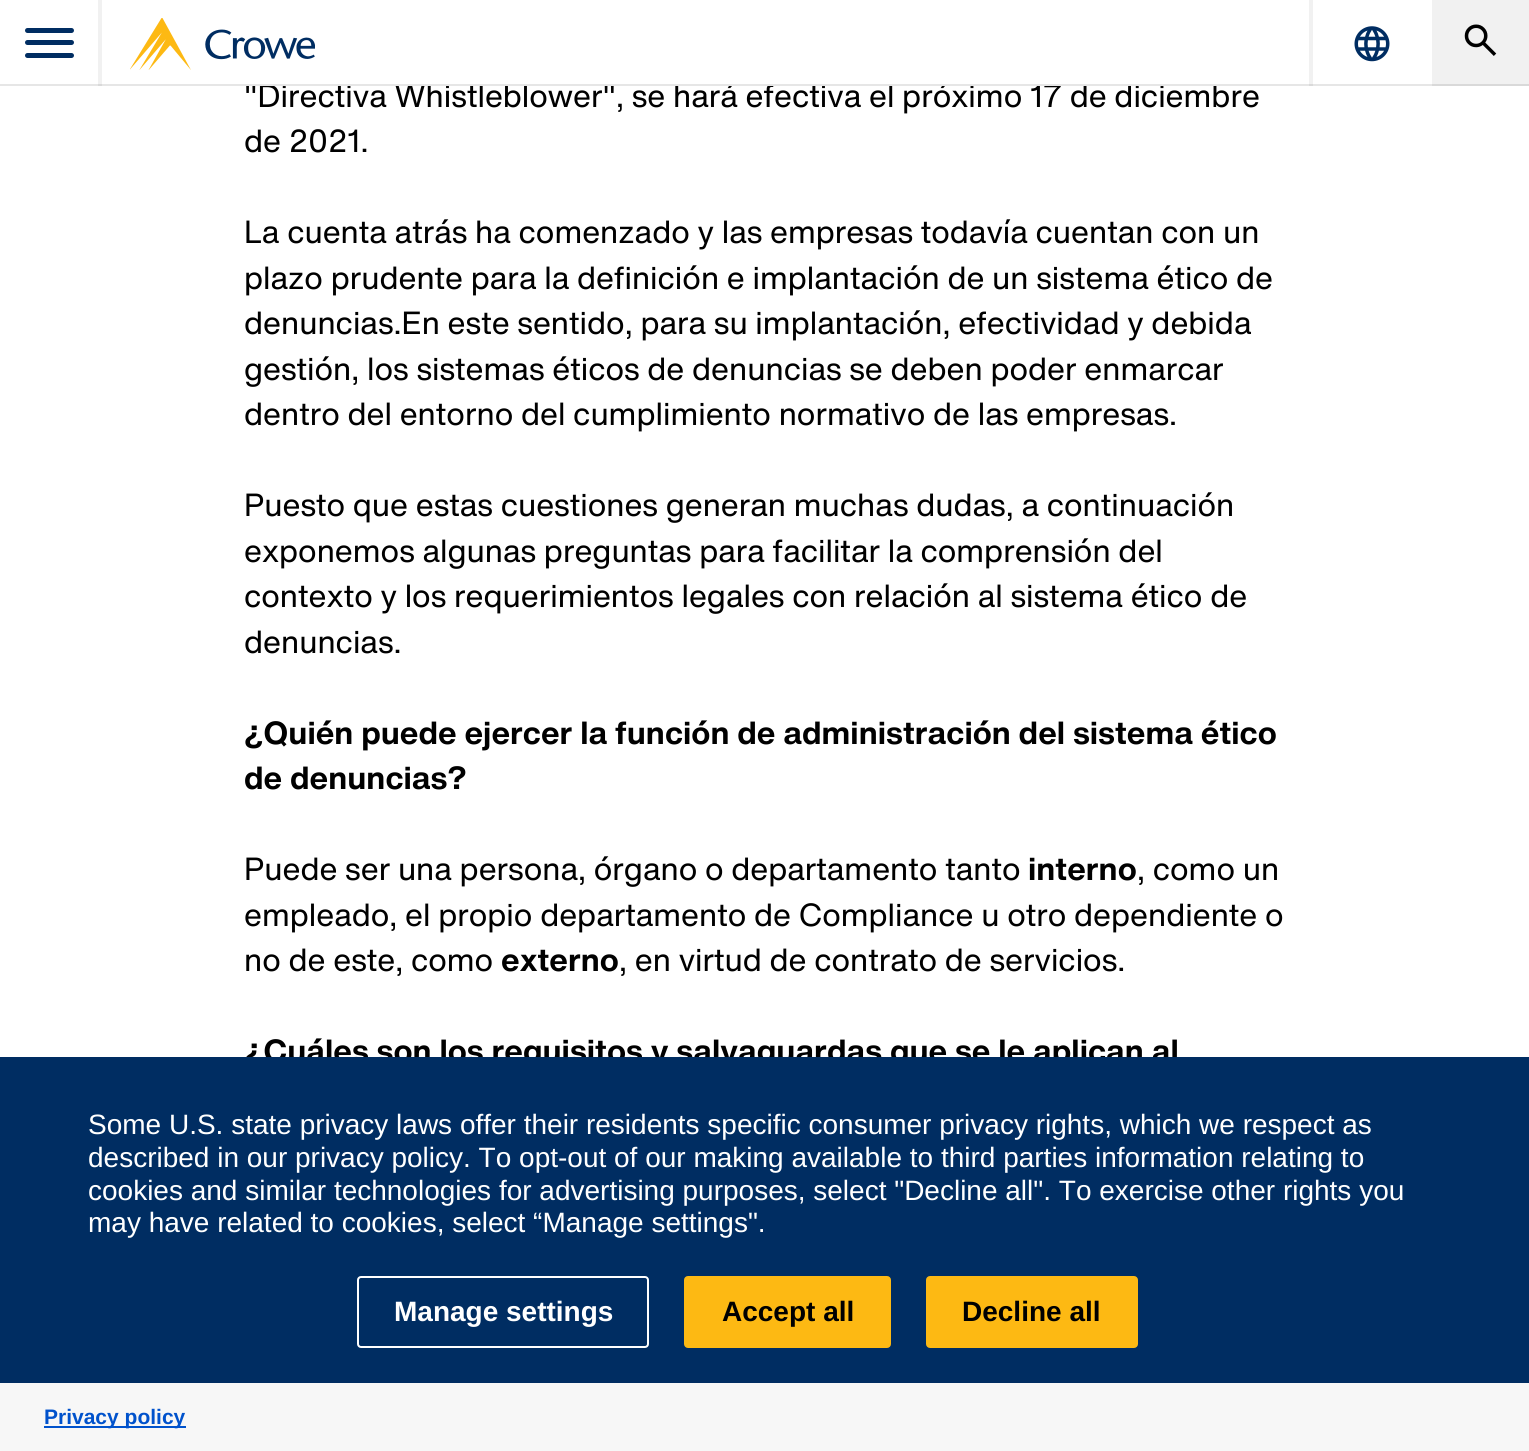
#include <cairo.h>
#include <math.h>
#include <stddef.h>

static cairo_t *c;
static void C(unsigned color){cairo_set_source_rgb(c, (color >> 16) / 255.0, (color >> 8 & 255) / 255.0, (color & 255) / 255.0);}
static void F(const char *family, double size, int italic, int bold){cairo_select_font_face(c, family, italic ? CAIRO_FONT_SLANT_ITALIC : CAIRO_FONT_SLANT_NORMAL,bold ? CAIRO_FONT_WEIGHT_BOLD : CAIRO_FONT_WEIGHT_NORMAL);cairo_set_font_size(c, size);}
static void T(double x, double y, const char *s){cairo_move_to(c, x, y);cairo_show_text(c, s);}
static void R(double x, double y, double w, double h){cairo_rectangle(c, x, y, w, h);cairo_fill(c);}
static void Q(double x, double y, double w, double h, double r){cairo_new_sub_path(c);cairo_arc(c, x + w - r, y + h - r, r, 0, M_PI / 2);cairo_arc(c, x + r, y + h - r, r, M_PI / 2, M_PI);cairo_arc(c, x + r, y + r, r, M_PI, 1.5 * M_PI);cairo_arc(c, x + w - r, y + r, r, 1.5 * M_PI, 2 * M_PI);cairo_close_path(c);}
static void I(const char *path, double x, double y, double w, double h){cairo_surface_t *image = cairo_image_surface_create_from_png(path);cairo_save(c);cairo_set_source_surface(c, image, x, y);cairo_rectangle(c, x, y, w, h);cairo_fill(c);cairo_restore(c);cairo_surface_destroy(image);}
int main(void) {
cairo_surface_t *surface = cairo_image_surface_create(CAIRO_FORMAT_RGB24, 1529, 1451);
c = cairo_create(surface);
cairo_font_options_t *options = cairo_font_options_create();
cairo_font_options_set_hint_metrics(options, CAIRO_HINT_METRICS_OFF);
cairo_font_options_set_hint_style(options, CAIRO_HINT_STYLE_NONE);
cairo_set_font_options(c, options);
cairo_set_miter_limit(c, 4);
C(0xffffff);
cairo_paint(c);
F("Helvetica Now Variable",31.5,0,0);
C(0x000000);
T(244,107,"\"Directiva Whistleblower\", se hará efectiva el próximo 17 de diciembre");
C(0xffffff);
R(246,83,971,3);
C(0xf1f1f1);
R(98,0,4,86);
C(0x002d62);
Q(25,28,49,5,2.5);
cairo_fill(c);
Q(25,40,49,5,2.5);
cairo_fill(c);
Q(25,53,49,5,2.5);
cairo_fill(c);
C(0xf1f1f1);
R(1309,0,4,86);
I("1.png",130,18,185,52);
I("2.png",1354,26,36,36);
R(1432,0,97,86);
I("3.png",1464,24,33,32);
cairo_set_source_rgba(c,0,0,0,0.1);
R(0,84,1529,2);
C(0x000000);
T(244,152,"de 2021.");
T(244,243,"La cuenta atrás ha comenzado y las empresas todavía cuentan con un");
T(244,289,"plazo prudente para la definición e implantación de un sistema ético de");
T(244,334,"denuncias.En este sentido, para su implantación, efectividad y debida");
T(244,380,"gestión, los sistemas éticos de denuncias se deben poder enmarcar");
T(244,425,"dentro del entorno del cumplimiento normativo de las empresas.");
T(244,516,"Puesto que estas cuestiones generan muchas dudas, a continuación");
T(244,562,"exponemos algunas preguntas para facilitar la comprensión del");
T(244,607,"contexto y los requerimientos legales con relación al sistema ético de");
T(244,653,"denuncias.");
F("Helvetica Now Variable",31.5,0,1);
T(244,744,"¿Quién puede ejercer la función de administración del sistema ético");
T(244,789,"de denuncias?");
F("Helvetica Now Variable",31.5,0,0);
T(244,880,"Puede ser una persona, órgano o departamento tanto");
F("Helvetica Now Variable",31.5,0,1);
T(1028,880,"interno");
F("Helvetica Now Variable",31.5,0,0);
T(1137,880,", como un");
T(244,926,"empleado, el propio departamento de Compliance u otro dependiente o");
T(244,971,"no de este, como");
F("Helvetica Now Variable",31.5,0,1);
T(501,971,"externo");
F("Helvetica Now Variable",31.5,0,0);
T(619,971,", en virtud de contrato de servicios.");
F("Helvetica Now Variable",31.5,0,1);
T(244,1062,"¿Cuáles son los requisitos y salvaguardas que se le aplican al");
C(0x002d62);
R(0,1057,1529,326);
F("Liberation Sans",28,0,0);
C(0xffffff);
T(88,1134,"Some U.S. state privacy laws offer their residents specific consumer privacy rights, which we respect as");
T(88,1167,"described in our privacy policy. To opt-out of our making available to third parties information relating to");
T(88,1200,"cookies and similar technologies for advertising purposes, select \"Decline all\". To exercise other rights you");
T(88,1232,"may have related to cookies, select “Manage settings\".");
Q(358,1277,290,70,3);
cairo_stroke(c);
F("Liberation Sans",28,0,1);
T(394,1321,"Manage settings");
C(0xfdb913);
Q(685,1277,205,70,3);
cairo_fill_preserve(c);
cairo_stroke(c);
C(0x000000);
T(722,1321,"Accept all");
C(0xfdb913);
Q(927,1277,210,70,3);
cairo_fill_preserve(c);
cairo_stroke(c);
C(0x000000);
T(962,1321,"Decline all");
C(0xf7f7f7);
R(0,1383,1529,68);
C(0x0052cc);
R(44,1426,142,2);
F("Liberation Sans",21,0,1);
T(44,1424,"Privacy policy");
cairo_surface_write_to_png(surface, "o.png");
cairo_font_options_destroy(options);
cairo_destroy(c);
cairo_surface_destroy(surface);
return 0;
}
